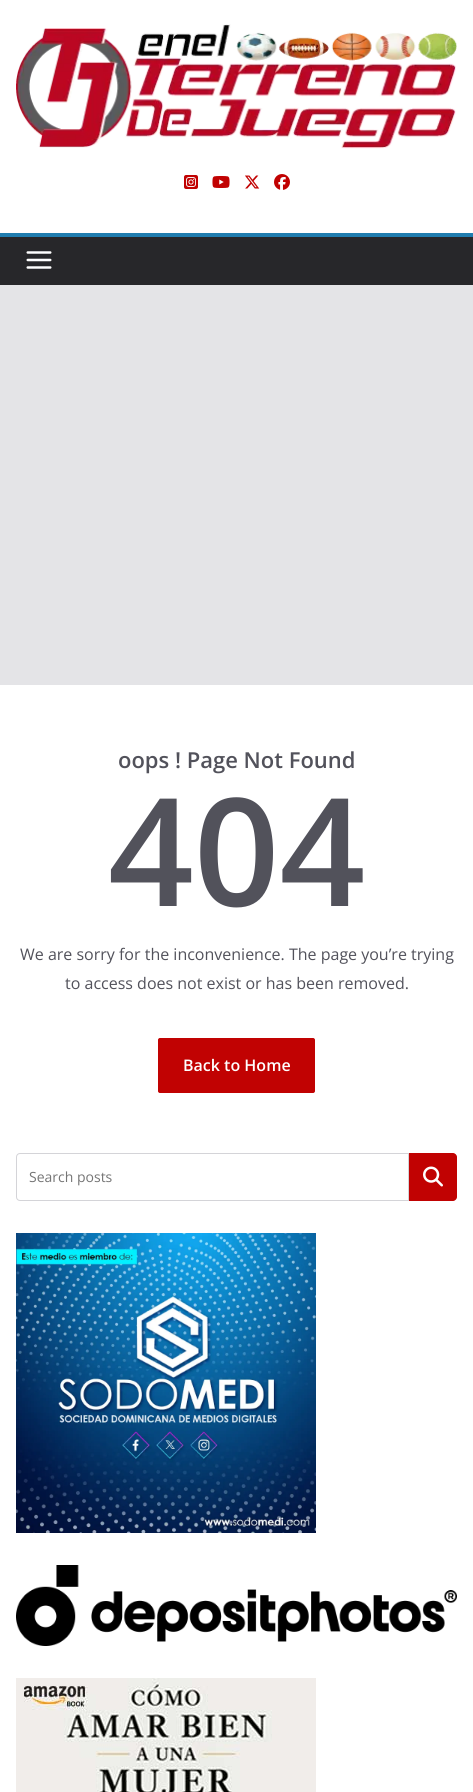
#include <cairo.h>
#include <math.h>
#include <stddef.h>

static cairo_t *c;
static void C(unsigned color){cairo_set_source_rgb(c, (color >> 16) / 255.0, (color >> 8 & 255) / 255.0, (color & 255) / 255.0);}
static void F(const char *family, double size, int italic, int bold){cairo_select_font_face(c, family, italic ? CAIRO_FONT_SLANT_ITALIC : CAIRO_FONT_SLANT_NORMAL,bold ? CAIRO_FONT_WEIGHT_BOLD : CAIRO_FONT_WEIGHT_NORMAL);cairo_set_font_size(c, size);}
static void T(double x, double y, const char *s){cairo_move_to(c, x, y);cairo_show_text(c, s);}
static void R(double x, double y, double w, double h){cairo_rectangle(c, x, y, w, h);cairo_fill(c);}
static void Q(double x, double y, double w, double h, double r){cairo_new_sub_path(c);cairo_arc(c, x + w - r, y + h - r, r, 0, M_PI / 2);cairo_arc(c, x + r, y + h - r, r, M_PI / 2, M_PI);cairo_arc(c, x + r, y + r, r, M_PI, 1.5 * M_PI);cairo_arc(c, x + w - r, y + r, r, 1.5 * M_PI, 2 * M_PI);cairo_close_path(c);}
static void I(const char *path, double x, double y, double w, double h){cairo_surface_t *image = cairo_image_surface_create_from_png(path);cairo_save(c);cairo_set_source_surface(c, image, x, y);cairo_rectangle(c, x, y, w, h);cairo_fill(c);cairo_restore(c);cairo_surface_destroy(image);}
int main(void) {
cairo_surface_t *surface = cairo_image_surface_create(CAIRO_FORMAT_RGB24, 473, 1792);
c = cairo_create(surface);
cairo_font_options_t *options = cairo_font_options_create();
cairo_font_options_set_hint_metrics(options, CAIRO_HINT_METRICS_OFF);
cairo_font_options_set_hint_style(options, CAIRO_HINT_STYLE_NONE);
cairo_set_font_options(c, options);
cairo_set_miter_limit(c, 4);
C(0xe4e4e7);
cairo_paint(c);
C(0xffffff);
R(0,0,473,233);
I("1.png",16,24,441,125);
I("2.png",184,175,14,14);
I("3.png",212,176,18,12);
I("4.png",245,175,15,14);
I("5.png",274,174,16,16);
C(0x27272a);
R(0,237,473,48);
C(0x207daf);
R(0,233,473,4);
I("6.png",26,251,26,18);
C(0xffffff);
R(0,685,473,1107);
F("Open Sans SemiBold",22,0,0);
C(0x52525b);
T(118,768,"oops ! Page Not Found");
F("Open Sans SemiBold",150,0,0);
T(108,906,"404");
F("Open Sans",16,0,0);
T(20,960,"We are sorry for the inconvenience. The page you’re trying");
T(65,989,"to access does not exist or has been removed.");
C(0xc10202);
Q(158.5,1038.5,156,54,1.5);
cairo_fill_preserve(c);
cairo_set_line_width(c,1);
cairo_stroke(c);
F("Open Sans SemiBold",16,0,0);
C(0xffffff);
T(183,1071,"Back to Home");
cairo_new_path(c);
cairo_move_to(c,20,1153.5);
cairo_line_to(c,408.5,1153.5);
cairo_line_to(c,408.5,1200.5);
cairo_line_to(c,20,1200.5);
cairo_curve_to(c,18,1200.5,16.5,1199,16.5,1197);
cairo_line_to(c,16.5,1157);
cairo_curve_to(c,16.5,1155,18,1153.5,20,1153.5);
cairo_close_path(c);
C(0xd4d4d8);
cairo_stroke(c);
F("Open Sans",14,0,0);
C(0x757575);
T(29,1182,"Search posts");
C(0xc10202);
cairo_new_path(c);
cairo_move_to(c,409,1153);
cairo_line_to(c,453,1153);
cairo_curve_to(c,455,1153,457,1155,457,1157);
cairo_line_to(c,457,1197);
cairo_curve_to(c,457,1199,455,1201,453,1201);
cairo_line_to(c,409,1201);
cairo_close_path(c);
cairo_fill(c);
I("7.png",423,1166,20,21);
I("8.png",16,1233,300,300);
I("9.png",16,1565,441,81);
I("10.png",16,1678,300,114);
cairo_surface_write_to_png(surface, "o.png");
cairo_font_options_destroy(options);
cairo_destroy(c);
cairo_surface_destroy(surface);
return 0;
}
